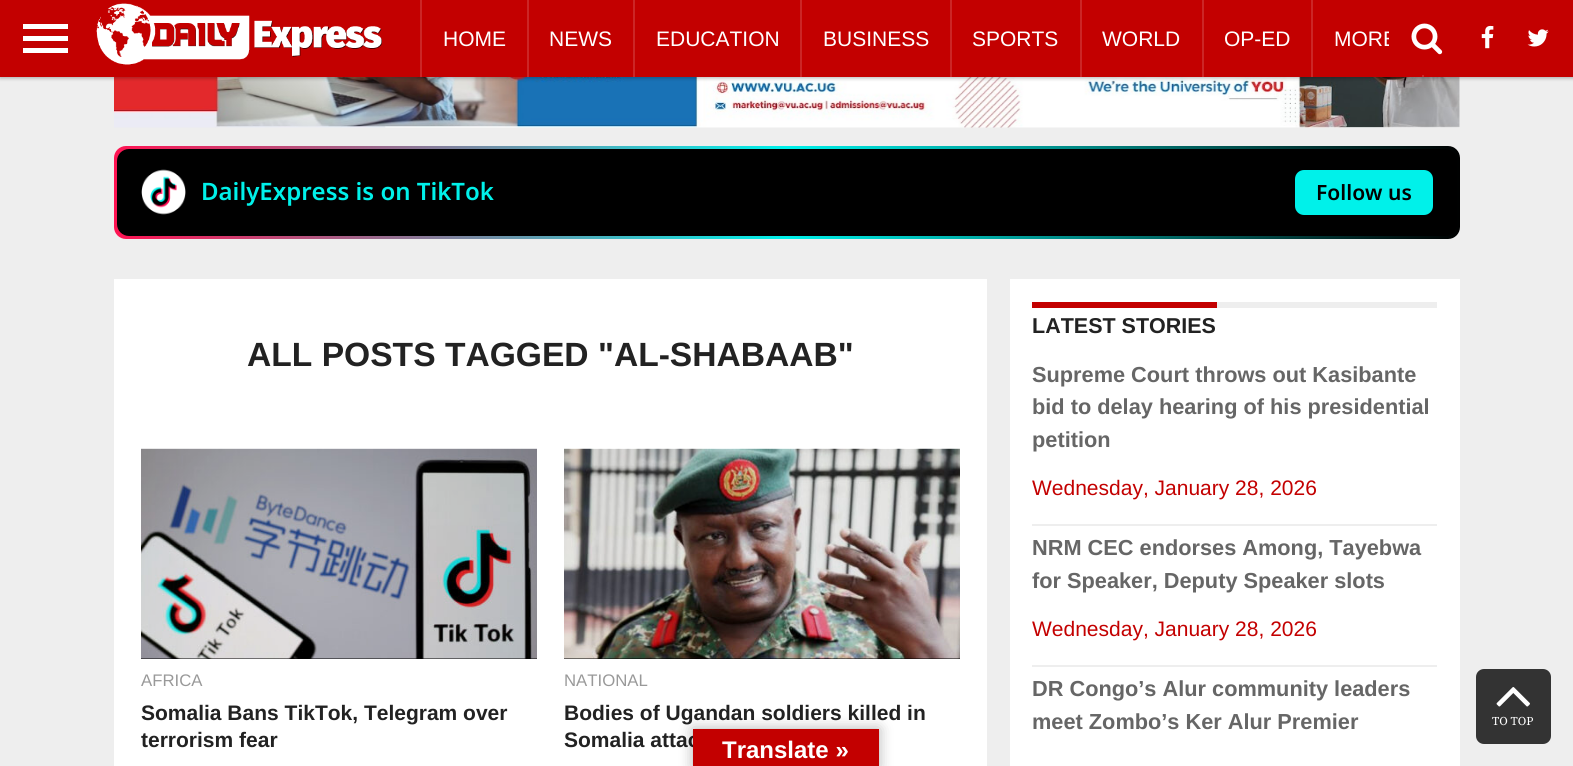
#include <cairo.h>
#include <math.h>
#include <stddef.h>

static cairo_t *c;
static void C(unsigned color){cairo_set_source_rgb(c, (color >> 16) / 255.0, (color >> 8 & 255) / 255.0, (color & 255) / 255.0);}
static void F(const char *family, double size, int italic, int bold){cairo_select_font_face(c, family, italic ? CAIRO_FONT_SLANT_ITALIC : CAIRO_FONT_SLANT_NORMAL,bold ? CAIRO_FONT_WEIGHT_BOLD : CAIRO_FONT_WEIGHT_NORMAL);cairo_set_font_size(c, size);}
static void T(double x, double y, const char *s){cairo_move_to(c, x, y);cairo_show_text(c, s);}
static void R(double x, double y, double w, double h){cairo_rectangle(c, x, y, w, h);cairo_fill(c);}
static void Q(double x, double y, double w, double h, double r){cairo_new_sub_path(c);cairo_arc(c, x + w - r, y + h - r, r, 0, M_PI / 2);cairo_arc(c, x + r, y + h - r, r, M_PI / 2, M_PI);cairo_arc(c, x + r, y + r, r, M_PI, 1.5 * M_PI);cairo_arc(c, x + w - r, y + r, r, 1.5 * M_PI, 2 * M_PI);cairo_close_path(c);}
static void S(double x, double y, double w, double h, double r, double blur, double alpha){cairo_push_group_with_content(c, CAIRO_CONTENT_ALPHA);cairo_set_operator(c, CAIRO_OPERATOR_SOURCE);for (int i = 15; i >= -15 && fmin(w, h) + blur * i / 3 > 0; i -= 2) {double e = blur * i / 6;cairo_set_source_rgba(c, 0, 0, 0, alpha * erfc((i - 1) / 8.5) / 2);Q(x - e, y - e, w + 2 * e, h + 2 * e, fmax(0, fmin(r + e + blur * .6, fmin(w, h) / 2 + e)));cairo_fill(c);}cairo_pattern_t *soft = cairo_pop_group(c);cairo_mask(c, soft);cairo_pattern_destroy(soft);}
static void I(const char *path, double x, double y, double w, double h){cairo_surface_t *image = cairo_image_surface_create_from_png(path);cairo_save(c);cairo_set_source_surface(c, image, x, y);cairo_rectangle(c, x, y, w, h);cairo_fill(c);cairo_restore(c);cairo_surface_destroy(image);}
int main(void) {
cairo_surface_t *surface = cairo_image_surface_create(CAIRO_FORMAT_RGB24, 1573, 766);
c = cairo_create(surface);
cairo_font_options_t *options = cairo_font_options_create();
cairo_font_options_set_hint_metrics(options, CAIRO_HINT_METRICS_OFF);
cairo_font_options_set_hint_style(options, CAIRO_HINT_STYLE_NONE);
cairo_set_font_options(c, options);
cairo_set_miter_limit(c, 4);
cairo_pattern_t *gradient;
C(0xeeeeee);
cairo_paint(c);
I("5.png",114,77,1346,51);
C(0x000000);
S(0,3,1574,75,0,2,.3);
C(0xc30000);
R(0,0,1573,77);
C(0xffffff);
R(23,24,45,5);
R(23,36,45,5);
R(23,48,45,5);
I("1.png",96,3,287,62);
C(0xcc2626);
R(420,0,2,77);
F("Liberation Sans",21,0,0);
C(0xffffff);
T(443,46,"HOME");
C(0xcc2626);
R(527,0,2,77);
C(0xffffff);
T(549,46,"NEWS");
C(0xcc2626);
R(633,0,2,77);
C(0xffffff);
T(656,46,"EDUCATION");
C(0xcc2626);
R(800,0,2,77);
C(0xffffff);
T(823,46,"BUSINESS");
C(0xcc2626);
R(950,0,2,77);
C(0xffffff);
T(972,46,"SPORTS");
C(0xcc2626);
R(1080,0,2,77);
C(0xffffff);
T(1102,46,"WORLD");
C(0xcc2626);
R(1202,0,2,77);
C(0xffffff);
T(1224,46,"OP-ED");
C(0xcc2626);
R(1311,0,2,77);
C(0xffffff);
T(1334,46,"MORE");
C(0xcc2626);
R(1422,75,2,2);
C(0xc30000);
R(1389,31,8,15);
I("2.png",1411,23,32,32);
I("3.png",1481,25,13,24);
I("4.png",1527,29,22,18);
gradient = cairo_pattern_create_linear(114,192,1460,192);
cairo_pattern_add_color_stop_rgba(gradient,0,1,0.075,0.322,1);
cairo_pattern_add_color_stop_rgba(gradient,.5,0,0.945,0.918,1);
cairo_pattern_add_color_stop_rgba(gradient,1,0,0,0,1);
cairo_set_source(c,gradient);
cairo_pattern_destroy(gradient);
Q(114,146,1346,93,12);
cairo_fill(c);
C(0x000000);
Q(117,149,1340,87,12);
cairo_fill(c);
I("6.png",141,169,45,46);
F("Noto Sans SemiBold",24,0,0);
C(0x00f1ea);
T(201,200,"DailyExpress is on TikTok");
Q(1295,170,138,45,9);
cairo_fill(c);
F("Noto Sans SemiBold",21,0,0);
C(0x000000);
T(1316,200,"Follow us");
C(0xffffff);
R(114,279,873,487);
F("Liberation Sans",33.6,0,1);
C(0x222222);
T(247,366,"ALL POSTS TAGGED \"AL-SHABAAB\"");
C(0x000000);
R(141,449,396,210);
I("7.png",141,448,396,211);
F("Liberation Sans",16.75,0,0);
C(0x999999);
T(141,686,"AFRICA");
F("Liberation Sans",21,0,1);
C(0x222222);
T(141,720,"Somalia Bans TikTok, Telegram over");
T(141,747,"terrorism fear");
C(0x000000);
R(564,449,396,210);
I("8.png",564,448,396,211);
F("Liberation Sans",16.75,0,0);
C(0x999999);
T(564,686,"NATIONAL");
F("Liberation Sans",21,0,1);
C(0x222222);
T(564,720,"Bodies of Ugandan soldiers killed in");
T(564,747,"Somalia attac");
C(0xffffff);
R(1010,279,450,487);
C(0xeeeeee);
R(1217,302,220,6);
C(0xc30000);
R(1032,302,185,6);
F("Liberation Sans",21.5,0,1);
C(0x222222);
T(1032,333,"LATEST STORIES");
C(0xeeeeee);
R(1032,524,405,2);
F("Liberation Sans",21.75,0,1);
C(0x666666);
T(1032,382,"Supreme Court throws out Kasibante");
T(1032,414,"bid to delay hearing of his presidential");
T(1032,447,"petition");
F("Liberation Sans",21,0,0);
C(0xc30000);
T(1032,495,"Wednesday, January 28, 2026");
C(0xeeeeee);
R(1032,665,405,2);
F("Liberation Sans",21.75,0,1);
C(0x666666);
T(1032,555,"NRM CEC endorses Among, Tayebwa");
T(1032,588,"for Speaker, Deputy Speaker slots");
F("Liberation Sans",21,0,0);
C(0xc30000);
T(1032,636,"Wednesday, January 28, 2026");
F("Liberation Sans",21.75,0,1);
C(0x666666);
T(1032,696,"DR Congo’s Alur community leaders");
T(1032,729,"meet Zombo’s Ker Alur Premier");
C(0x333333);
Q(1476,669,75,75,8);
cairo_fill(c);
I("9.png",1496,687,34,20);
F("Source Serif Pro",12,0,0);
C(0xffffff);
T(1492,725,"TO TOP");
C(0x000000);
S(693,729,186,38,0,7,.3);
C(0xc30000);
R(693,729,186,37);
F("Liberation Sans",24,0,1);
C(0xffffff);
T(722,758,"Translate »");
cairo_surface_write_to_png(surface, "o.png");
cairo_font_options_destroy(options);
cairo_destroy(c);
cairo_surface_destroy(surface);
return 0;
}
